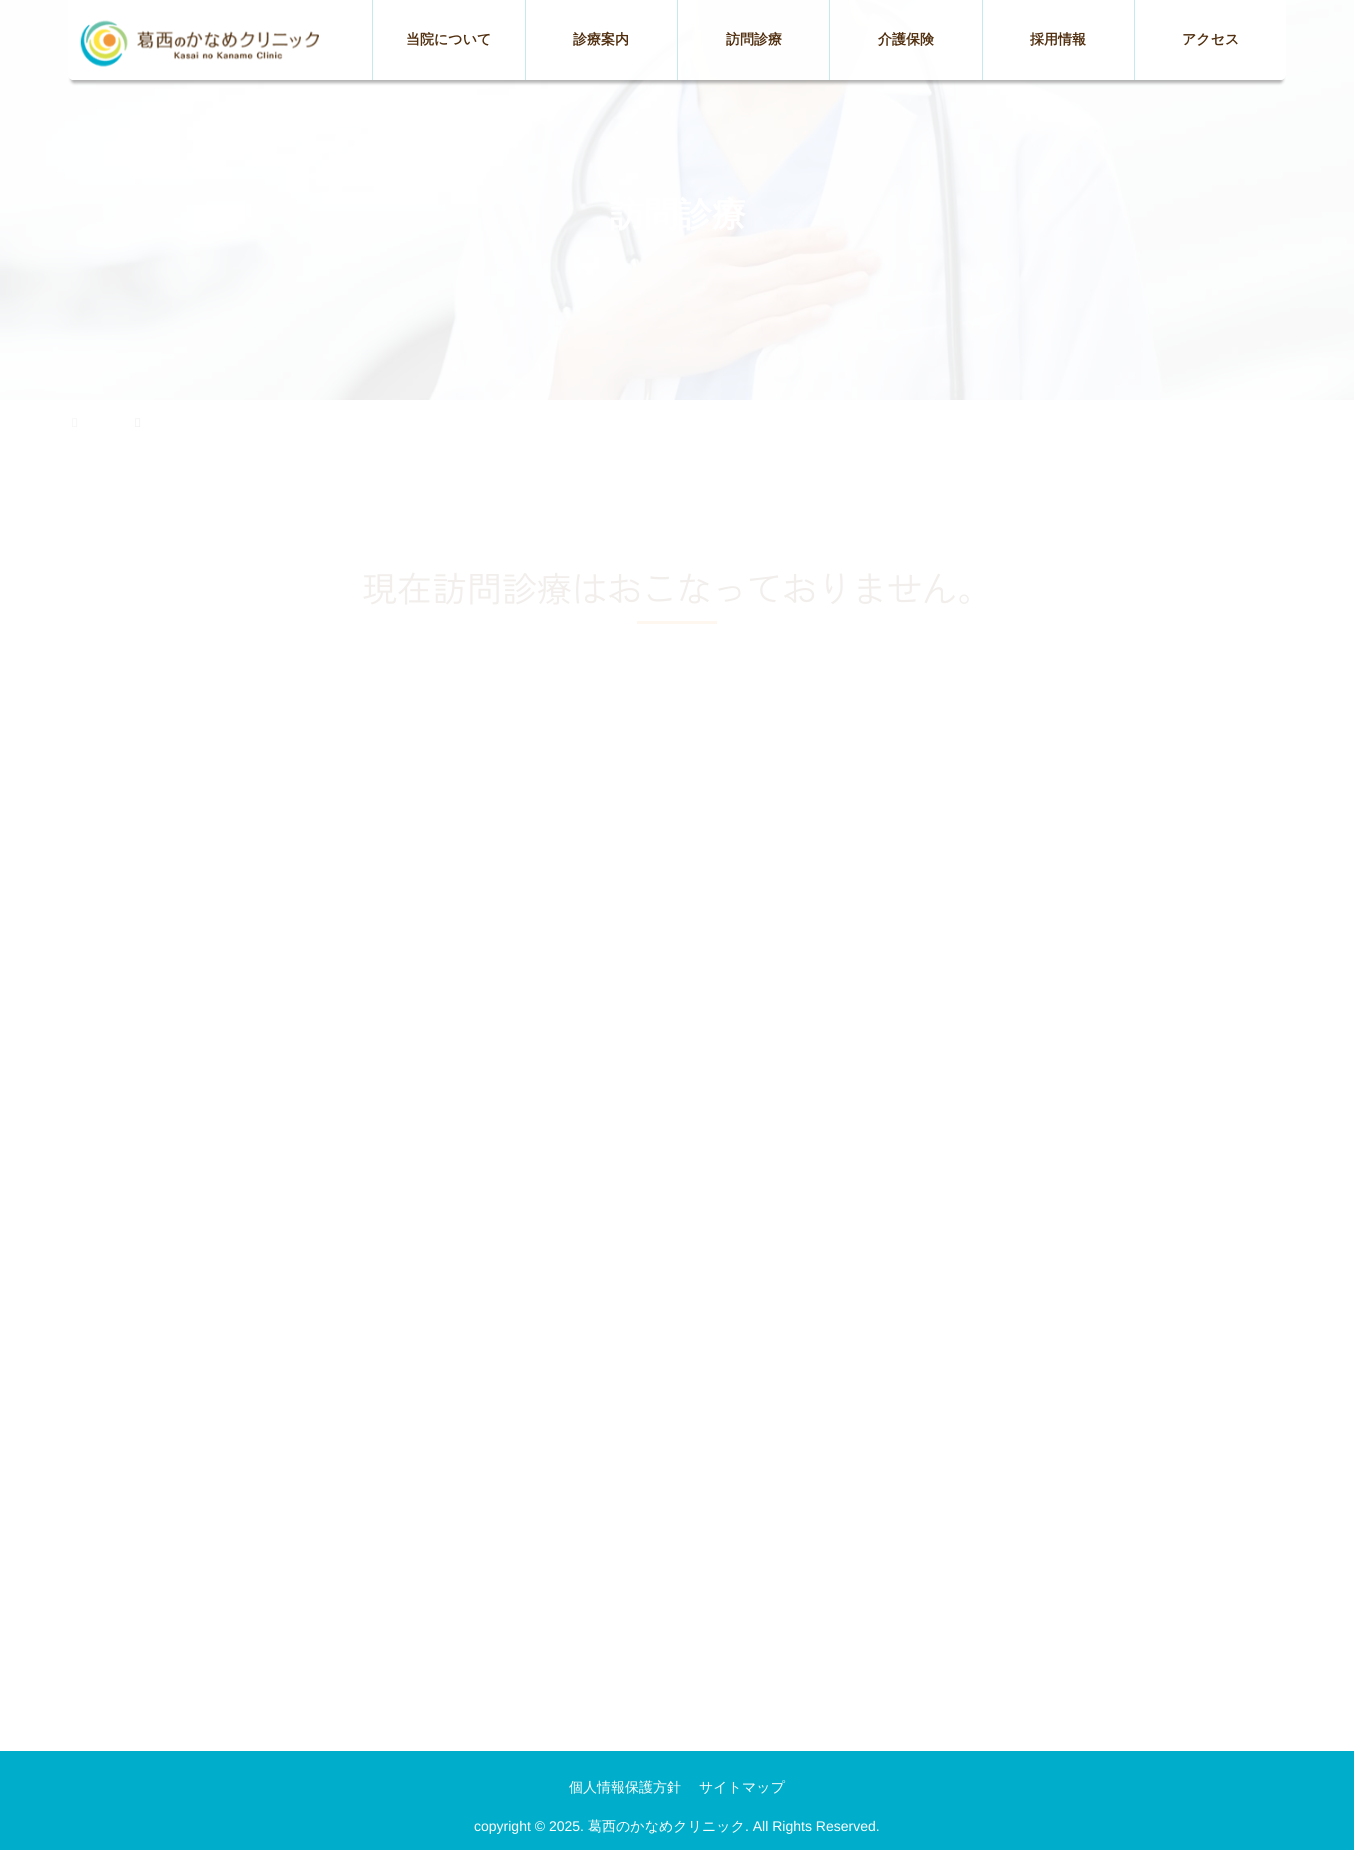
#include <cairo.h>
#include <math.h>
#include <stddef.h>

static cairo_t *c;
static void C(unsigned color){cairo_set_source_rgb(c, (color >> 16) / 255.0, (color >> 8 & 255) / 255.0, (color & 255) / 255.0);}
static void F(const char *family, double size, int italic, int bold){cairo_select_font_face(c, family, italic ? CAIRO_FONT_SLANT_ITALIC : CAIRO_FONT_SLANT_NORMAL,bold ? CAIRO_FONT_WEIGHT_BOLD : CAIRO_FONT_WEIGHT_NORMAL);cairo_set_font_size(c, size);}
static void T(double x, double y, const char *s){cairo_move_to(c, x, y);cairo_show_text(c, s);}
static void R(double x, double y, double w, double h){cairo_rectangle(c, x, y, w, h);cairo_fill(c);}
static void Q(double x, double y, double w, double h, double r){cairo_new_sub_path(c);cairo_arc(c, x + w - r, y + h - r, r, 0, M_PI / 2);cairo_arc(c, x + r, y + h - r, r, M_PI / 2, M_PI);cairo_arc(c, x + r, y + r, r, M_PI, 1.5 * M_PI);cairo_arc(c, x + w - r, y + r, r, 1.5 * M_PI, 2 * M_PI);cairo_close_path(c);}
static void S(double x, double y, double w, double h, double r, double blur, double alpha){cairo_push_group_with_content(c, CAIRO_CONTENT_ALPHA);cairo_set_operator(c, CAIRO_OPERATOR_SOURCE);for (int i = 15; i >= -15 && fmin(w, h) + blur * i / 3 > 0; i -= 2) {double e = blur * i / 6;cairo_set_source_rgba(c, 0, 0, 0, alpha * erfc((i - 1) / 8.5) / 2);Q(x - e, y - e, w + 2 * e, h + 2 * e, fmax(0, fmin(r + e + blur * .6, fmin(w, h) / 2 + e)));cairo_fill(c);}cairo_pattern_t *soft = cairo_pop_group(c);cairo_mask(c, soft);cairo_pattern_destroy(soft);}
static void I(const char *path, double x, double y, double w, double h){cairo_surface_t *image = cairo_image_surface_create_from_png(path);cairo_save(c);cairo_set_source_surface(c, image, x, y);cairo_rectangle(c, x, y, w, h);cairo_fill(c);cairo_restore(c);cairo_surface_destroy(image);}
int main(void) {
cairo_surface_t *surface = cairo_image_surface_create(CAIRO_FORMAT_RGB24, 1354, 1850);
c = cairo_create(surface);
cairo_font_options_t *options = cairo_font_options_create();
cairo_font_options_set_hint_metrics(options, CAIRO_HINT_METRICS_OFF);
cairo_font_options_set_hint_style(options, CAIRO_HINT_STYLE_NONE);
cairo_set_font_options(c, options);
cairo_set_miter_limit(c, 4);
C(0xffffff);
cairo_paint(c);
I("2.png",0,0,1354,400);
cairo_save(c);
cairo_set_fill_rule(c,CAIRO_FILL_RULE_EVEN_ODD);
cairo_new_path(c);
cairo_move_to(c,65,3);
cairo_line_to(c,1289,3);
cairo_line_to(c,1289,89);
cairo_line_to(c,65,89);
cairo_close_path(c);
cairo_move_to(c,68,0);
cairo_line_to(c,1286,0);
cairo_line_to(c,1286,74);
cairo_curve_to(c,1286,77.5,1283.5,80,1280,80);
cairo_line_to(c,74,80);
cairo_curve_to(c,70.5,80,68,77.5,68,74);
cairo_close_path(c);
cairo_clip(c);
C(0x000000);
S(71,9,1212,74,3,1.5,.3);
cairo_restore(c);
cairo_set_source_rgba(c,1,1,1,0.9);
cairo_new_path(c);
cairo_move_to(c,68,0);
cairo_line_to(c,1286,0);
cairo_line_to(c,1286,74);
cairo_curve_to(c,1286,77.5,1283.5,80,1280,80);
cairo_line_to(c,74,80);
cairo_curve_to(c,70.5,80,68,77.5,68,74);
cairo_close_path(c);
cairo_fill(c);
I("1.png",80,20,239,47);
C(0xc4e9ef);
R(372,0,1,80);
F("WenQuanYi Zen Hei",14,0,1);
C(0x502e0e);
T(406,44,"当院について");
C(0xc4e9ef);
R(525,0,1,80);
C(0x502e0e);
T(573,44,"診療案内");
C(0xc4e9ef);
R(677,0,1,80);
C(0x502e0e);
T(726,44,"訪問診療");
C(0xc4e9ef);
R(829,0,1,80);
C(0x502e0e);
T(878,44,"介護保険");
C(0xc4e9ef);
R(982,0,1,80);
C(0x502e0e);
T(1030,44,"採用情報");
C(0xc4e9ef);
R(1134,0,1,80);
C(0x502e0e);
T(1182,44,"アクセス");
F("WenQuanYi Zen Hei",34,0,1);
C(0xffffff);
T(610,226,"訪問診療");
I("3.png",72,418,6,9);
I("4.png",135,418,6,9);
F("Zen Kaku Gothic Antique",35,0,0);
C(0xf1eeec);
T(362,602,"現在訪問診療はおこなっておりません。");
C(0xfef7ef);
R(637,621,80,3);
C(0x00aecb);
R(0,1751,1354,99);
F("WenQuanYi Zen Hei Medium",14,0,0);
C(0xffffff);
T(569,1792,"個人情報保護方針");
T(699,1792,"サイトマップ");
F("Liberation Sans",14,0,0);
T(474,1831,"copyright © 2025.");
F("WenQuanYi Zen Hei Medium",14,0,0);
T(588,1831,"葛西のかなめクリニック");
F("Liberation Sans",14,0,0);
T(745,1831,". All Rights Reserved.");
cairo_surface_write_to_png(surface, "o.png");
cairo_font_options_destroy(options);
cairo_destroy(c);
cairo_surface_destroy(surface);
return 0;
}
